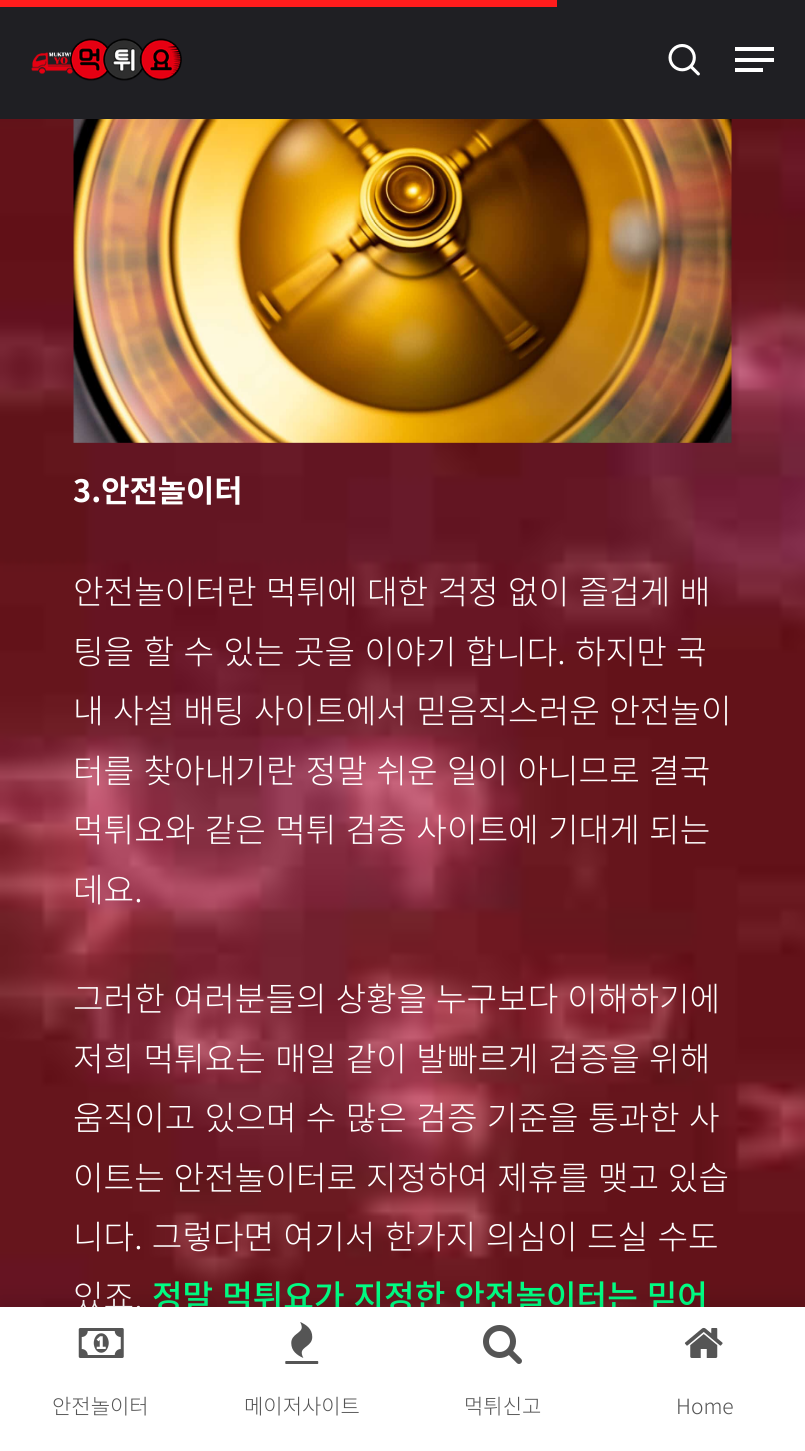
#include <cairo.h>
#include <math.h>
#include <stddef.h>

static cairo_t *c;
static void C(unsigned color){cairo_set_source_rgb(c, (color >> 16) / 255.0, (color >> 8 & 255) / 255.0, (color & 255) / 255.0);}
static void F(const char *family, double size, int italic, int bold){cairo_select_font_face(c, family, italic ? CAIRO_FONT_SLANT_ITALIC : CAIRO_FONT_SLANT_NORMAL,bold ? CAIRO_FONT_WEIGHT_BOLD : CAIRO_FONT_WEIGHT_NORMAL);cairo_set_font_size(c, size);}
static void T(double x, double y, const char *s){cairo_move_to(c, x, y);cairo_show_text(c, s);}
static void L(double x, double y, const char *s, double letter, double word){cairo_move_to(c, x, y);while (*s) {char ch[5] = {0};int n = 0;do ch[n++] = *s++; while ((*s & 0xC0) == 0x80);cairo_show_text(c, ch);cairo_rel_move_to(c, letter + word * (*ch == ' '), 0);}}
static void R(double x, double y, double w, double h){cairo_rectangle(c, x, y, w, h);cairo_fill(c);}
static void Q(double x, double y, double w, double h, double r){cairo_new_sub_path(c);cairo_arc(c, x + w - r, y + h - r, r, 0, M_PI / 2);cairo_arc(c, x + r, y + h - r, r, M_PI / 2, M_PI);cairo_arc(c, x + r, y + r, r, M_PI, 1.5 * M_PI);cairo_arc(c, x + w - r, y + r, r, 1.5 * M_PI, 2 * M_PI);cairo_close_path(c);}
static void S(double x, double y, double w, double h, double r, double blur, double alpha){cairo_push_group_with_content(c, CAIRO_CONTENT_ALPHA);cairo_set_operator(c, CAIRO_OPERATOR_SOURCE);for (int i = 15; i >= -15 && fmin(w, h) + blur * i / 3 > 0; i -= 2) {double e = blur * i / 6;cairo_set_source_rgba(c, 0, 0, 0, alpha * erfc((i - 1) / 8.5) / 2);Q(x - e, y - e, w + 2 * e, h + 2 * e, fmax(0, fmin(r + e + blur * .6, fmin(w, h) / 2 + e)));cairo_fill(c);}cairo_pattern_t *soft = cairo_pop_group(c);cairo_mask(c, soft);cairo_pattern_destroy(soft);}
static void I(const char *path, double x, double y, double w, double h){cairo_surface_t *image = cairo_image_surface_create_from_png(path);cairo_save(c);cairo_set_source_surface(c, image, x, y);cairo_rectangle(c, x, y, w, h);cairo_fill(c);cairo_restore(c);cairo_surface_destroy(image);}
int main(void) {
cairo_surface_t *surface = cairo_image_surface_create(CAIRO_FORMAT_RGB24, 805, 1451);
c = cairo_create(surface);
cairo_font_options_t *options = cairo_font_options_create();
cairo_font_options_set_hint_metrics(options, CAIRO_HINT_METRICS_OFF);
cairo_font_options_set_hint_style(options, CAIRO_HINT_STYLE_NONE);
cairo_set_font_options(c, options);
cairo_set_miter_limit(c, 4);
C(0xffffff);
cairo_paint(c);
C(0x1f1f23);
R(0,0,805,119);
C(0xff1c1c);
R(0,0,557,7);
I("1.png",31,38,151,43);
I("2.png",668,44,32,32);
C(0xffffff);
R(735,47,39,4);
R(735,68,28,4);
R(735,58,39,4);
I("3.png",0,119,805,1188);
I("4.png",73,119,659,324);
F("Noto Sans KR",30.75,0,1);
T(73,502,"3.안전놀이터");
F("Noto Sans KR Light",33.25,0,0);
L(73,604,"안전놀이터란 먹튀에 대한 걱정 없이 즐겁게 배",0,2);
L(73,664,"팅을 할 수 있는 곳을 이야기 합니다. 하지만 국",0,2);
L(73,723,"내 사설 배팅 사이트에서 믿음직스러운 안전놀이",0,2);
L(73,783,"터를 찾아내기란 정말 쉬운 일이 아니므로 결국",0,2);
L(73,842,"먹튀요와 같은 먹튀 검증 사이트에 기대게 되는",0,2);
T(73,902,"데요.");
L(73,1011,"그러한 여러분들의 상황을 누구보다 이해하기에",0,1.5);
L(73,1071,"저희 먹튀요는 매일 같이 발빠르게 검증을 위해",0,2);
L(73,1130,"움직이고 있으며 수 많은 검증 기준을 통과한 사",0,2);
L(73,1190,"이트는 안전놀이터로 지정하여 제휴를 맺고 있습",0,1.5);
L(73,1249,"니다. 그렇다면 여기서 한가지 의심이 드실 수도",0,2);
T(73,1309,"있죠.");
F("Noto Sans KR Medium",33.25,0,0);
C(0x00ff84);
L(152,1309,"정말 먹튀요가 지정한 안전놀이터는 믿어",0,1.5);
C(0x000000);
S(0,1299,805,145,0,9,.1);
C(0xffffff);
R(0,1307,805,144);
I("5.png",78,1328,46,30);
F("Noto Sans KR Light",21,0,0);
C(0x555555);
T(52,1414,"안전놀이터");
I("6.png",285,1322,34,42);
T(244,1414,"메이저사이트");
I("7.png",483,1325,39,39);
T(464,1414,"먹튀신고");
I("8.png",684,1327,39,31);
T(676,1414,"Home");
cairo_surface_write_to_png(surface, "o.png");
cairo_font_options_destroy(options);
cairo_destroy(c);
cairo_surface_destroy(surface);
return 0;
}
